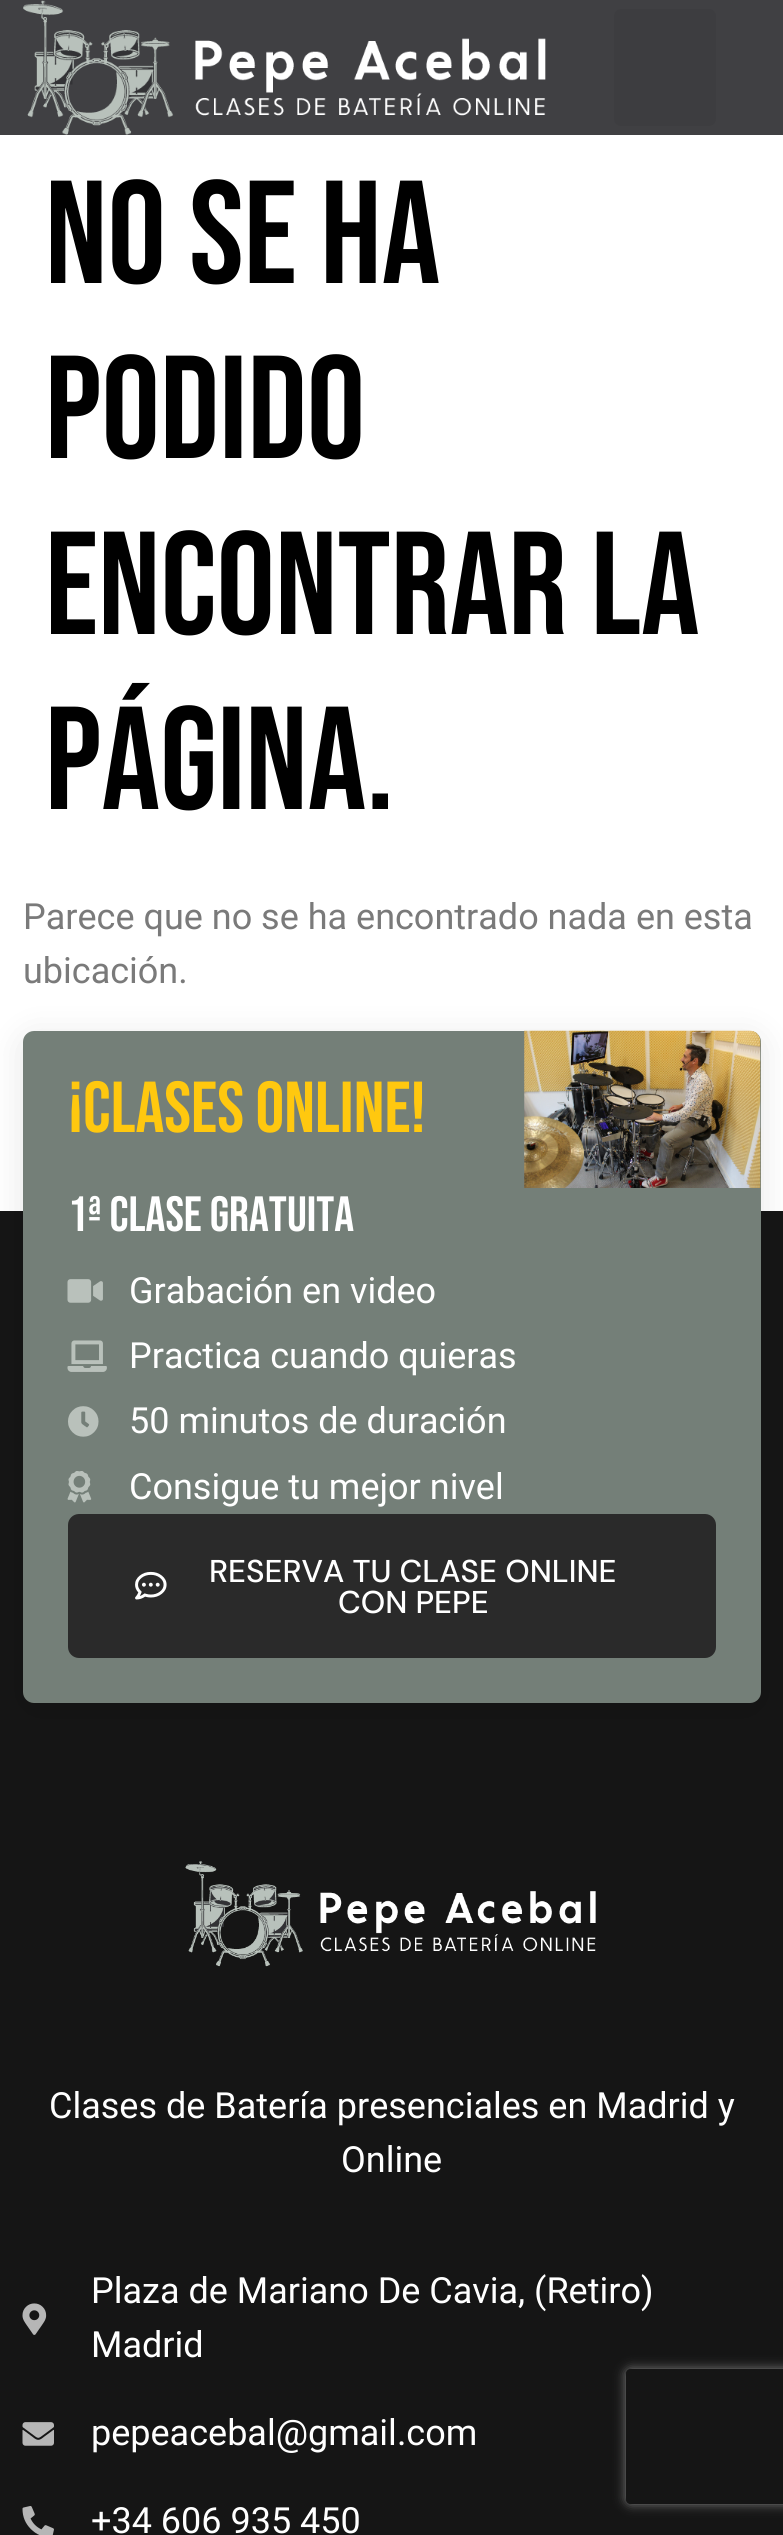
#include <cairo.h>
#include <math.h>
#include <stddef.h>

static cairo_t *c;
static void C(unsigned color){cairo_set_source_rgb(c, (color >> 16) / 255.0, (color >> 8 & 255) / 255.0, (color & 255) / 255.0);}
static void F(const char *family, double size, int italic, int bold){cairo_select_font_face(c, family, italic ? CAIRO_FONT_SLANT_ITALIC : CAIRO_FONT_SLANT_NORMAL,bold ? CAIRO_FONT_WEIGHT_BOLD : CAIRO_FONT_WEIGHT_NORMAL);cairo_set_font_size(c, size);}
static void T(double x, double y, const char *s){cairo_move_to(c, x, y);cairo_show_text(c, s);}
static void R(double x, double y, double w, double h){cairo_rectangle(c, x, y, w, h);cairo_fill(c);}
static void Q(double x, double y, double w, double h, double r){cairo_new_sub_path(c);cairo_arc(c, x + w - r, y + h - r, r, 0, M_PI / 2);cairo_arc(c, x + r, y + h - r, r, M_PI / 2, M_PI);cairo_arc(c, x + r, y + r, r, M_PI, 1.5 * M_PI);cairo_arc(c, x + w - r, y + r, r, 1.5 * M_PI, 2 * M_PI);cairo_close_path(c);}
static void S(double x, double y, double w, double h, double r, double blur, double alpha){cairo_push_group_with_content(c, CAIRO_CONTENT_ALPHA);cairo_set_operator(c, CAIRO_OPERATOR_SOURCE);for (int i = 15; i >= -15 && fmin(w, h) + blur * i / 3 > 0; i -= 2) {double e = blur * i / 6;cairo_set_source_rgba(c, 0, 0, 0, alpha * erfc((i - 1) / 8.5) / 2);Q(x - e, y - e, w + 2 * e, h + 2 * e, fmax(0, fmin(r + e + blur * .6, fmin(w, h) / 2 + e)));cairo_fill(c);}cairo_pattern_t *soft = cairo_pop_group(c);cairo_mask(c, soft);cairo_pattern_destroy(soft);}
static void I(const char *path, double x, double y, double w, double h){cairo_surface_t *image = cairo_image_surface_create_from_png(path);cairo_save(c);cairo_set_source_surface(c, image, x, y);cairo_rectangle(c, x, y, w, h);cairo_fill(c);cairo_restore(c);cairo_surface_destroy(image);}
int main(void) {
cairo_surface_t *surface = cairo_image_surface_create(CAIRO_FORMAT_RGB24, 783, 2535);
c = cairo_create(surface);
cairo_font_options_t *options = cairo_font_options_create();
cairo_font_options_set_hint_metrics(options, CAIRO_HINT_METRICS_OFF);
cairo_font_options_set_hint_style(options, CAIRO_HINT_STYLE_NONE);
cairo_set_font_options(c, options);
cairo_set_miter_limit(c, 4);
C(0xffffff);
cairo_paint(c);
C(0x404043);
R(0,0,783,135);
I("1.png",23,0,523,135);
C(0x3d3d40);
Q(614,9,102,117,7);
cairo_fill(c);
F("Bebas Neue",146.25,0,0);
C(0x000000);
T(45,283,"No se ha");
T(45,458,"podido");
T(45,634,"encontrar la");
T(45,809,"página.");
F("Roboto",36,0,0);
C(0x7a7a7a);
T(23,929,"Parece que no se ha encontrado nada en esta");
T(23,983,"ubicación.");
C(0x151515);
R(0,1211,783,1324);
C(0x000000);
S(23,1037,738,673,11,17,.1);
C(0x747f78);
Q(23,1031,738,672,11);
cairo_fill(c);
F("Bebas Neue",72,0,0);
C(0xffc80f);
T(68,1132,"¡clases online!");
F("Bebas Neue",49.5,0,0);
C(0xffffff);
T(68,1231,"1ª clase gratuita");
I("2.png",67,1279,36,24);
F("Roboto",36,0,0);
T(129,1303,"Grabación en video");
I("3.png",67,1340,40,32);
T(129,1368,"Practica cuando quieras");
I("4.png",68,1406,31,31);
T(129,1433,"50 minutos de duración");
I("5.png",67,1471,25,32);
T(129,1499,"Consigue tu mejor nivel");
C(0x2a2a2a);
Q(68,1514,648,144,11);
cairo_fill(c);
I("6.png",135,1571,32,29);
F("DM Sans Medium",31.5,0,0);
C(0xffffff);
T(209,1582,"RESERVA TU CLASE ONLINE");
T(338,1613,"CON PEPE");
I("7.png",524,1030,237,158);
I("8.png",185,1861,411,106);
F("Roboto",36,0,0);
T(49,2118,"Clases de Batería presenciales en Madrid y");
T(341,2172,"Online");
I("9.png",22,2303,25,32);
T(91,2303,"Plaza de Mariano De Cavia, (Retiro)");
T(91,2357,"Madrid");
I("10.png",22,2422,32,24);
T(91,2445,"pepeacebal@gmail.com");
I("11.png",22,2506,32,29);
T(91,2533,"+34 606 935 450");
cairo_save(c);
cairo_set_fill_rule(c,CAIRO_FILL_RULE_EVEN_ODD);
cairo_new_path(c);
cairo_move_to(c,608,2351);
cairo_line_to(c,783,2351);
cairo_line_to(c,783,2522);
cairo_line_to(c,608,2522);
cairo_close_path(c);
cairo_move_to(c,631,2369);
cairo_line_to(c,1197,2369);
cairo_curve_to(c,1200,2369,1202,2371,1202,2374);
cairo_line_to(c,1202,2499);
cairo_curve_to(c,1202,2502,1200,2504,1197,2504);
cairo_line_to(c,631,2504);
cairo_curve_to(c,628,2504,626,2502,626,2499);
cairo_line_to(c,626,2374);
cairo_curve_to(c,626,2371,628,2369,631,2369);
cairo_close_path(c);
cairo_clip(c);
C(0x808080);
S(626,2369,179,135,5,5.5,1);
cairo_restore(c);
cairo_surface_write_to_png(surface, "o.png");
cairo_font_options_destroy(options);
cairo_destroy(c);
cairo_surface_destroy(surface);
return 0;
}
